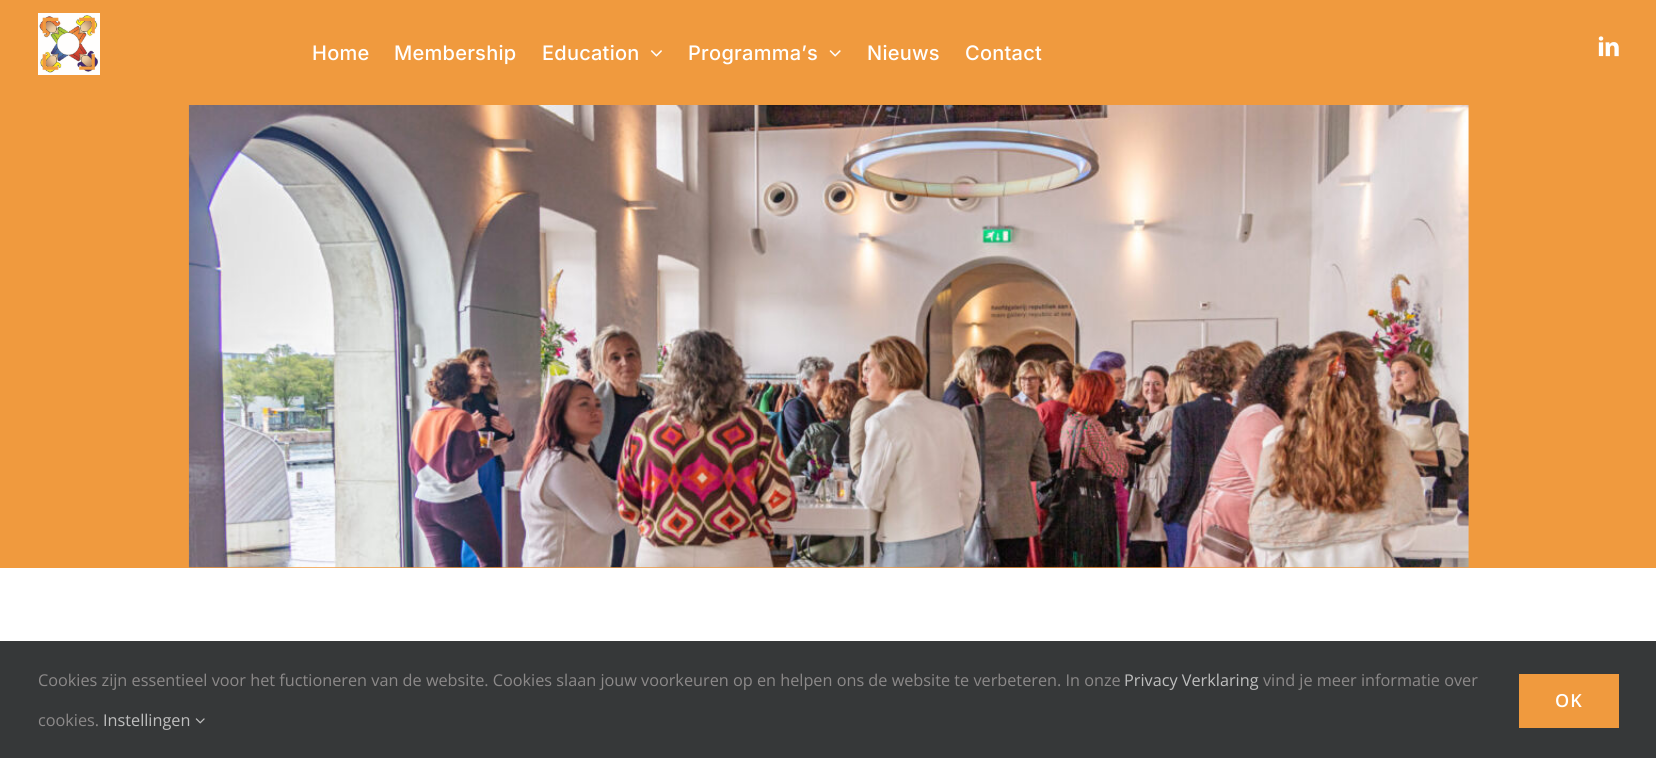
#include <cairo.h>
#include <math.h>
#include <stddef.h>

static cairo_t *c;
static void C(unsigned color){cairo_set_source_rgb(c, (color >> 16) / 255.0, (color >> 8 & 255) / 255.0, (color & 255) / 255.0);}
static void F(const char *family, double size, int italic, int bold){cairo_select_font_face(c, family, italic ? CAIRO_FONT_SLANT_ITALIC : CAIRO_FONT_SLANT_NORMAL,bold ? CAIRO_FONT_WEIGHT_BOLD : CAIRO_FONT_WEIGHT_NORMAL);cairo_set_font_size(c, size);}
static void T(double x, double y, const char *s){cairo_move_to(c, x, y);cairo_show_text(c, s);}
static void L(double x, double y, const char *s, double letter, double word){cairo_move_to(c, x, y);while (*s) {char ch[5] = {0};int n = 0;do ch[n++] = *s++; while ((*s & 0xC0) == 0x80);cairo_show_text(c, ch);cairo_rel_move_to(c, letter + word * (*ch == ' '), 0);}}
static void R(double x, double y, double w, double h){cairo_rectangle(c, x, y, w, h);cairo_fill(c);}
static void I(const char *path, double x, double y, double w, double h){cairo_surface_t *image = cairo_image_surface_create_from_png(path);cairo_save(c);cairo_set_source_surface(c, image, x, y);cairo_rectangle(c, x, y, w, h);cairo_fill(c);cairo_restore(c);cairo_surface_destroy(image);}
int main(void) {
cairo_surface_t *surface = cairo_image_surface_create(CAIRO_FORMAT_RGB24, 1656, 758);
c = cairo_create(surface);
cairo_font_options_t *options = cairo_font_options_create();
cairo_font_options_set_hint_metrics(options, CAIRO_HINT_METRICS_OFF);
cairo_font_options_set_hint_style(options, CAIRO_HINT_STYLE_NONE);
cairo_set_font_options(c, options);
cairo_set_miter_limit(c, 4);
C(0xffffff);
cairo_paint(c);
C(0xf09a3e);
R(0,0,1656,568);
I("1.png",38,13,62,62);
F("Inter Medium",20,0,0);
C(0xffffff);
L(312,60,"Home",.25,0);
L(394,60,"Membership",.25,0);
L(542,60,"Education",.25,0);
I("2.png",650,50,12,7);
L(688,60,"Programma’s",.25,0);
I("3.png",829,50,12,7);
L(867,60,"Nieuws",.25,0);
L(965,60,"Contact",.25,0);
I("4.png",1598,36,21,21);
I("5.png",188,105,1281,463);
C(0x363839);
R(0,641,1656,117);
F("Open Sans",16.25,0,0);
C(0x8c8989);
T(38,686,"Cookies zijn essentieel voor het fuctioneren van de website. Cookies slaan jouw voorkeuren op en helpen ons de website te verbeteren. In onze");
C(0xbfbfbf);
T(1124,686,"Privacy Verklaring");
C(0x8c8989);
T(1263,686,"vind je meer informatie over");
T(38,726,"cookies.");
C(0xbfbfbf);
T(103,726,"Instellingen");
I("6.png",195,718,10,6);
C(0xf09a3e);
R(1519,674,100,54);
F("Open Sans SemiBold",18,0,0);
C(0xffffff);
L(1555,707,"OK",1,0);
cairo_surface_write_to_png(surface, "o.png");
cairo_font_options_destroy(options);
cairo_destroy(c);
cairo_surface_destroy(surface);
return 0;
}
